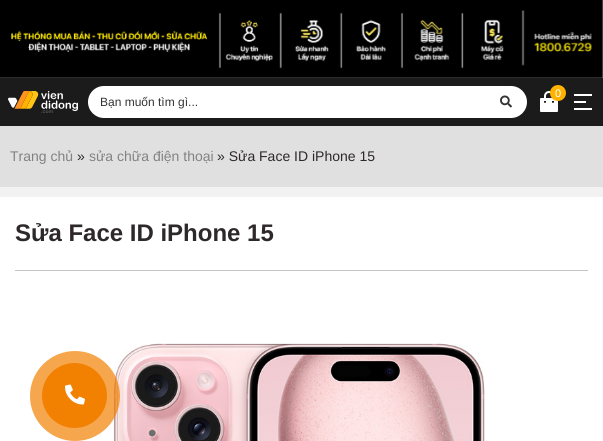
#include <cairo.h>
#include <math.h>
#include <stddef.h>

static cairo_t *c;
static void C(unsigned color){cairo_set_source_rgb(c, (color >> 16) / 255.0, (color >> 8 & 255) / 255.0, (color & 255) / 255.0);}
static void F(const char *family, double size, int italic, int bold){cairo_select_font_face(c, family, italic ? CAIRO_FONT_SLANT_ITALIC : CAIRO_FONT_SLANT_NORMAL,bold ? CAIRO_FONT_WEIGHT_BOLD : CAIRO_FONT_WEIGHT_NORMAL);cairo_set_font_size(c, size);}
static void T(double x, double y, const char *s){cairo_move_to(c, x, y);cairo_show_text(c, s);}
static void R(double x, double y, double w, double h){cairo_rectangle(c, x, y, w, h);cairo_fill(c);}
static void Q(double x, double y, double w, double h, double r){cairo_new_sub_path(c);cairo_arc(c, x + w - r, y + h - r, r, 0, M_PI / 2);cairo_arc(c, x + r, y + h - r, r, M_PI / 2, M_PI);cairo_arc(c, x + r, y + r, r, M_PI, 1.5 * M_PI);cairo_arc(c, x + w - r, y + r, r, 1.5 * M_PI, 2 * M_PI);cairo_close_path(c);}
static void I(const char *path, double x, double y, double w, double h){cairo_surface_t *image = cairo_image_surface_create_from_png(path);cairo_save(c);cairo_set_source_surface(c, image, x, y);cairo_rectangle(c, x, y, w, h);cairo_fill(c);cairo_restore(c);cairo_surface_destroy(image);}
int main(void) {
cairo_surface_t *surface = cairo_image_surface_create(CAIRO_FORMAT_RGB24, 603, 441);
c = cairo_create(surface);
cairo_font_options_t *options = cairo_font_options_create();
cairo_font_options_set_hint_metrics(options, CAIRO_HINT_METRICS_OFF);
cairo_font_options_set_hint_style(options, CAIRO_HINT_STYLE_NONE);
cairo_set_font_options(c, options);
cairo_set_miter_limit(c, 4);
C(0xf2f2f2);
cairo_paint(c);
I("1.png",0,0,603,78);
C(0x1b1b1b);
R(0,78,603,48);
I("2.png",8,91,70,22);
C(0xffffff);
Q(88,86,439,32,16);
cairo_fill(c);
F("Liberation Sans",12,0,0);
C(0x333333);
T(100,106,"Bạn muốn tìm gì...");
I("3.png",500,95,12,13);
I("4.png",540,91,18,21);
C(0xffb300);
cairo_arc(c,558,93,8,0,2 * M_PI);
cairo_fill(c);
F("Liberation Sans",11,0,0);
C(0xffffff);
T(555,97,"0");
I("5.png",574,94,18,16);
C(0xe0e0e0);
R(0,126,603,61);
F("Liberation Sans",14,0,0);
C(0x828282);
T(10,161,"Trang chủ");
C(0x2e282a);
T(77,161,"»");
C(0x828282);
T(89,161,"sửa chữa điện thoại");
C(0x2e282a);
T(217,161,"» Sửa Face ID iPhone 15");
C(0xffffff);
R(0,197,603,244);
C(0xc4c4c4);
R(15,270,573,1);
F("Liberation Sans",24,0,1);
C(0x2e282a);
T(15,241,"Sửa Face ID iPhone 15");
I("6.png",113,343,372,98);
cairo_set_source_rgba(c,0.949,0.506,0.008,0.7);
cairo_arc(c,75,396,45,0,2 * M_PI);
cairo_fill(c);
C(0xf28102);
cairo_arc(c,74.5,395.5,32.5,0,2 * M_PI);
cairo_fill(c);
I("7.png",65,384,20,21);
cairo_surface_write_to_png(surface, "o.png");
cairo_font_options_destroy(options);
cairo_destroy(c);
cairo_surface_destroy(surface);
return 0;
}
